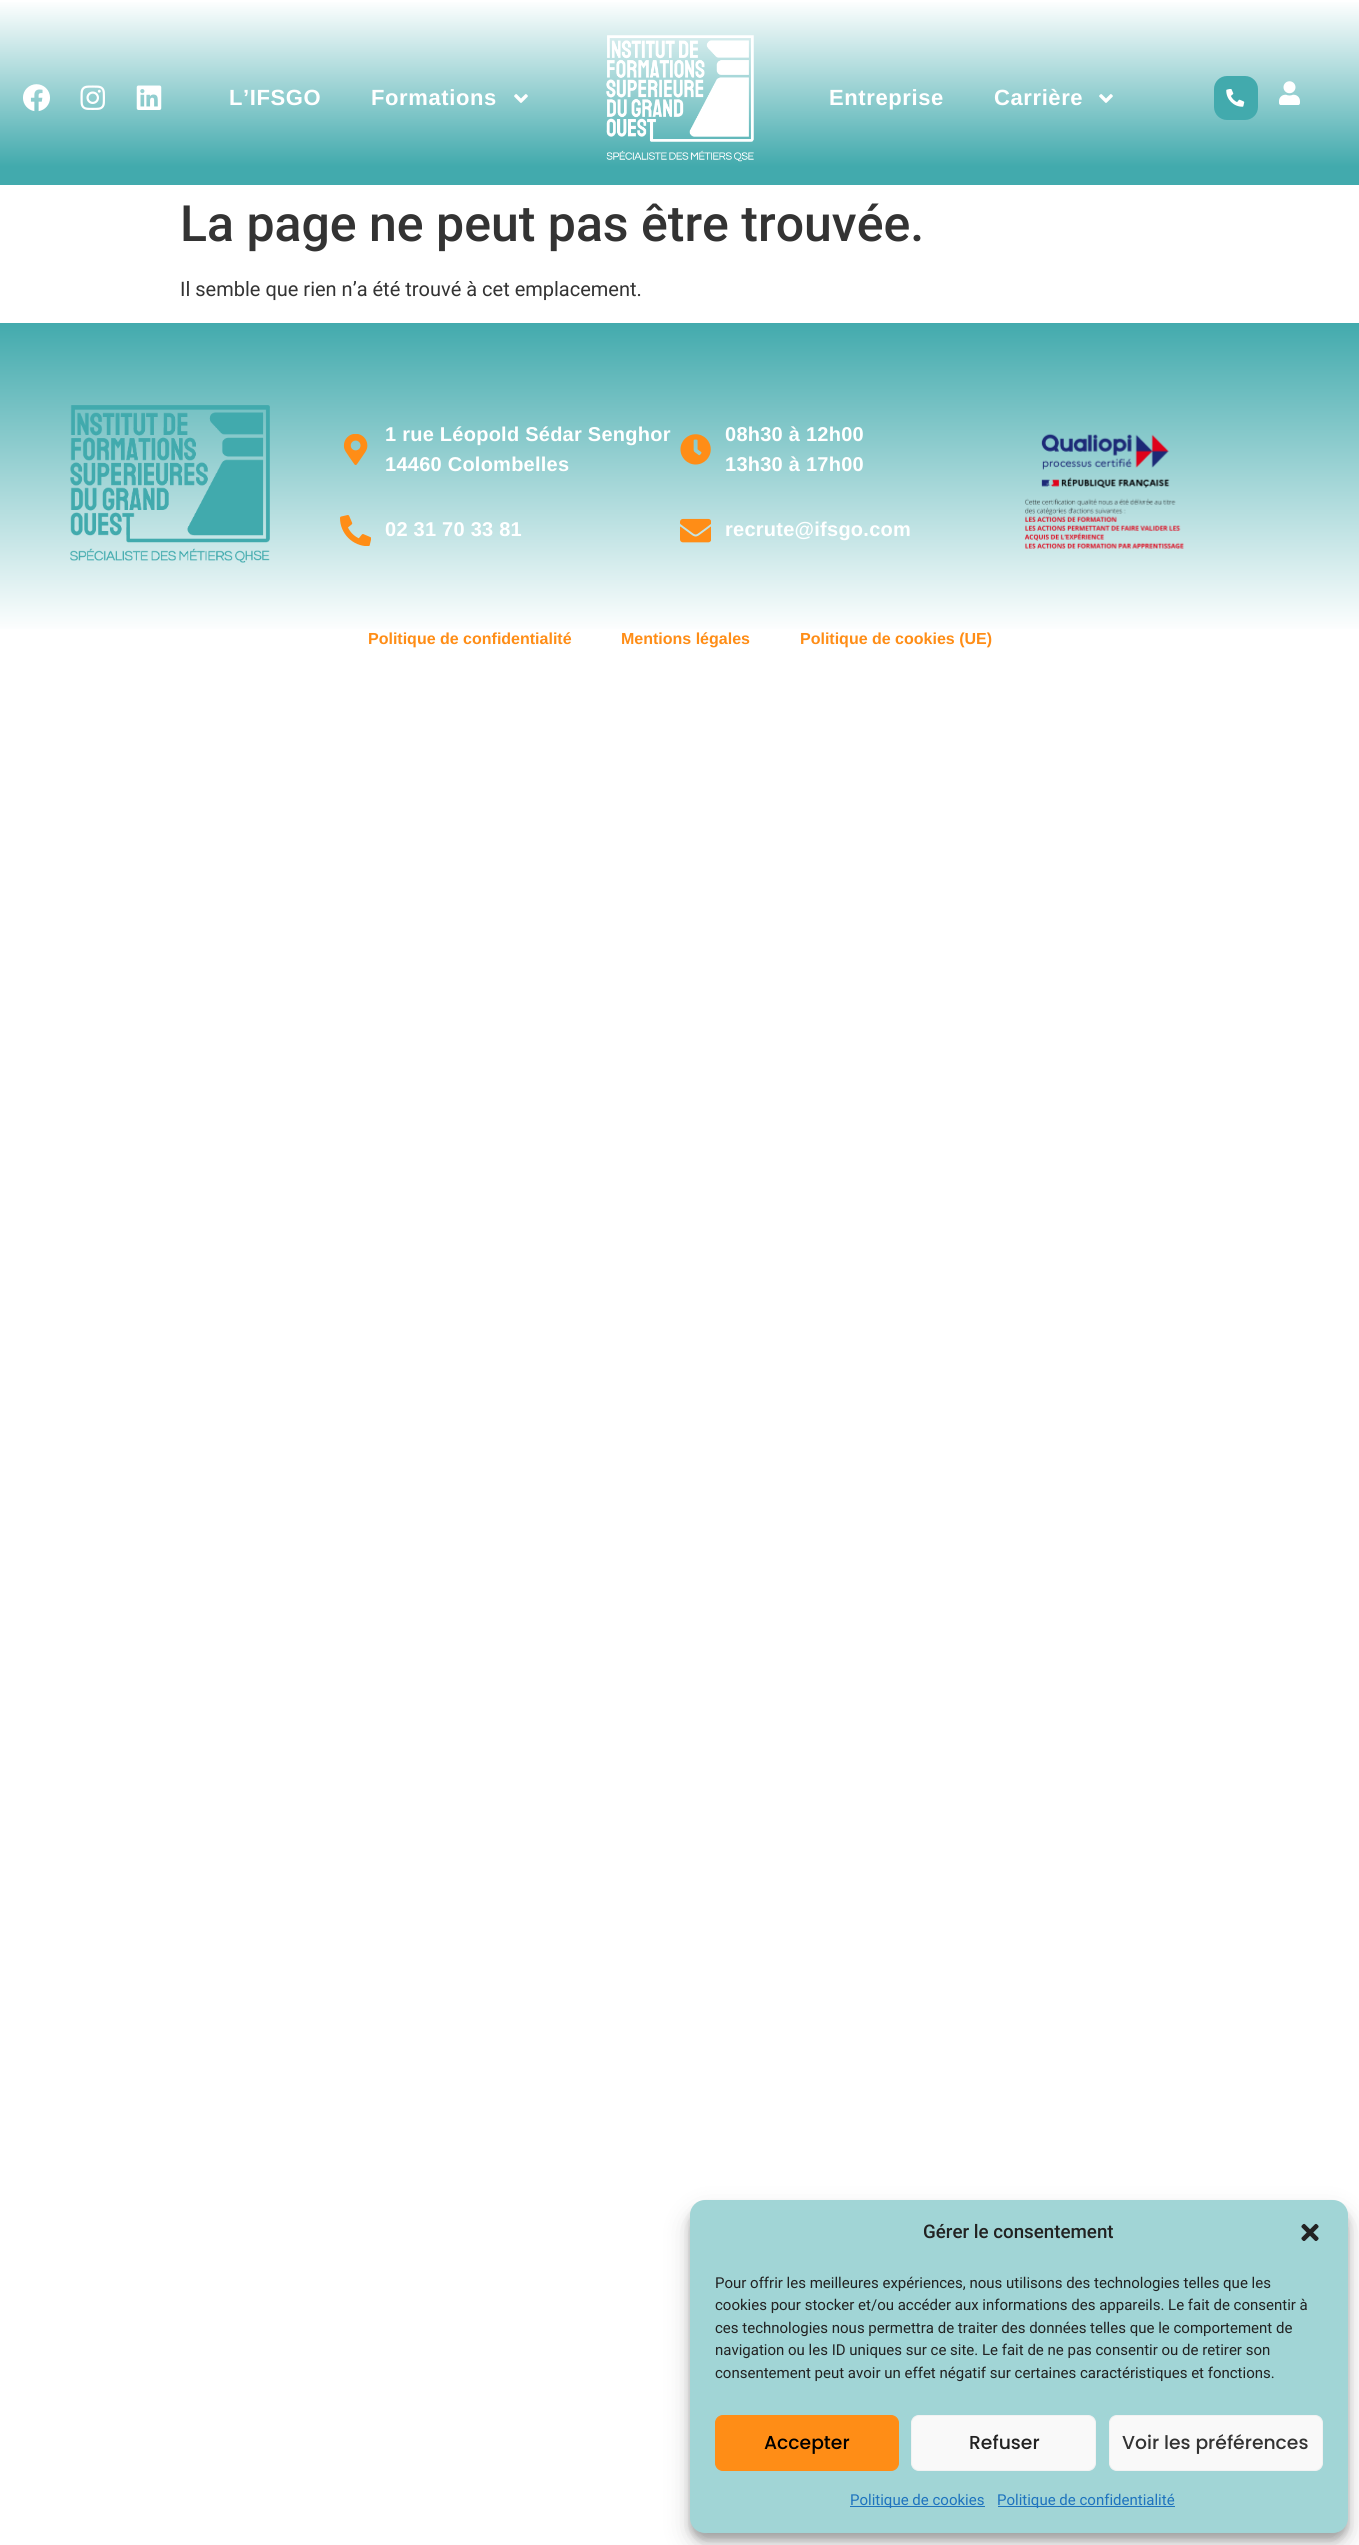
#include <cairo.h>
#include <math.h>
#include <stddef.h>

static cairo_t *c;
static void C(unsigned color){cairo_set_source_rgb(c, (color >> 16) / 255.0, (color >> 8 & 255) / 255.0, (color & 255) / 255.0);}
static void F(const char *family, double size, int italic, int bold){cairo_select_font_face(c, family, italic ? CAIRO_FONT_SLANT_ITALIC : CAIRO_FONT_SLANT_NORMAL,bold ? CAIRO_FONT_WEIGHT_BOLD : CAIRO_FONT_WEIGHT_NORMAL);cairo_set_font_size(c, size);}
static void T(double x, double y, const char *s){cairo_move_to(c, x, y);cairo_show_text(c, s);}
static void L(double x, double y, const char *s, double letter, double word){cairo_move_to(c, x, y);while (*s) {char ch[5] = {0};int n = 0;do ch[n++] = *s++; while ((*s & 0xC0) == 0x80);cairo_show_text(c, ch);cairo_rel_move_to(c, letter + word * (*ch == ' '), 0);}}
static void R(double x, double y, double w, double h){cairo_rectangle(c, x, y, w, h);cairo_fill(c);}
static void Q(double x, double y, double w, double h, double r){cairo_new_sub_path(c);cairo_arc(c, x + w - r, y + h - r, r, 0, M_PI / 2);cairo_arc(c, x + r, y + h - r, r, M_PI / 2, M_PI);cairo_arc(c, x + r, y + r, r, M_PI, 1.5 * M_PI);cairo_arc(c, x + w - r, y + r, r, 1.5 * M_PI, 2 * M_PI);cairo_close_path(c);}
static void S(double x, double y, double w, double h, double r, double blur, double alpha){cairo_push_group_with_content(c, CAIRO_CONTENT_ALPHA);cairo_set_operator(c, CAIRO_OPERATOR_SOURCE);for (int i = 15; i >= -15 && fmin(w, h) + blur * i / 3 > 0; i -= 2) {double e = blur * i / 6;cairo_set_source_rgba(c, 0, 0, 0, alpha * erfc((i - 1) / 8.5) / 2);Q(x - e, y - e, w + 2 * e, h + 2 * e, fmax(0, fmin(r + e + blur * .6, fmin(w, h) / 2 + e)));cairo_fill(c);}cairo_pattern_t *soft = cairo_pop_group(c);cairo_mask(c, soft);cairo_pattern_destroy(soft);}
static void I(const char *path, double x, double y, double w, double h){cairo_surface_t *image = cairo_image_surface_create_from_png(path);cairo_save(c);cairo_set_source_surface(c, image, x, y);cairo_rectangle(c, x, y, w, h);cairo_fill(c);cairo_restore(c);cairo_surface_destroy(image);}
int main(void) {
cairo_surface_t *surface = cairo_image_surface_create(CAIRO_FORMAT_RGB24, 1359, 2545);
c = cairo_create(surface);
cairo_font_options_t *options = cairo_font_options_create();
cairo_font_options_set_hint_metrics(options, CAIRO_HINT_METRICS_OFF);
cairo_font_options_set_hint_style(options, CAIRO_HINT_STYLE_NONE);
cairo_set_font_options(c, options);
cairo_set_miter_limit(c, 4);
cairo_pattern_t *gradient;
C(0xffffff);
cairo_paint(c);
gradient = cairo_pattern_create_linear(680,0,680,185);
cairo_pattern_add_color_stop_rgba(gradient,0,1,1,1,1);
cairo_pattern_add_color_stop_rgba(gradient,.9,0.259,0.667,0.678,1);
cairo_set_source(c,gradient);
cairo_pattern_destroy(gradient);
R(0,2,1359,183);
I("1.png",23,84,27,28);
I("2.png",80,85,25,25);
I("3.png",136,85,26,25);
F("Liberation Sans",22,0,1);
C(0xffffff);
L(229,105,"L’IFSGO",.6,0);
L(371,105,"Formations",.6,0);
I("4.png",514,94,14,9);
I("5.png",606,35,148,127);
L(829,105,"Entreprise",.6,0);
L(994,105,"Carrière",.6,0);
I("4.png",1099,94,14,9);
C(0x42aaad);
Q(1214,76,44,44,13);
cairo_fill(c);
I("6.png",1226,89,19,18);
I("7.png",1279,81,21,24);
F("Roboto Medium",50,0,0);
C(0x333333);
T(180,241,"La page ne peut pas être trouvée.");
F("Roboto",20,0,0);
T(180,296,"Il semble que rien n’a été trouvé à cet emplacement.");
gradient = cairo_pattern_create_linear(680,322,680,633);
cairo_pattern_add_color_stop_rgba(gradient,0,0.259,0.667,0.678,1);
cairo_pattern_add_color_stop_rgba(gradient,1,1,1,1,1);
cairo_set_source(c,gradient);
cairo_pattern_destroy(gradient);
R(0,323,1359,306);
I("8.png",70,405,200,158);
I("9.png",343,434,25,31);
F("Liberation Sans",20,0,1);
C(0xffffff);
L(385,441,"1 rue Léopold Sédar Senghor",.25,0);
L(385,471,"14460 Colombelles",.25,0);
I("10.png",340,515,31,31);
L(385,536,"02 31 70 33 81",.25,0);
I("11.png",680,434,31,31);
L(725,441,"08h30 à 12h00",.25,0);
L(725,471,"13h30 à 17h00",.25,0);
I("12.png",680,518,31,25);
L(725,536,"recrute@ifsgo.com",.25,0);
I("13.png",1024,433,160,116);
F("Liberation Sans",16,0,1);
C(0xff8d16);
T(368,644,"Politique de confidentialité");
T(621,644,"Mentions légales");
T(800,644,"Politique de cookies (UE)");
C(0x000000);
S(690,2208,658,332,15,4,.23);
S(690,2213,658,332,15,12.5,.19);
C(0xa1d5d6);
Q(690,2200,658,333,15);
cairo_fill(c);
F("Roboto Medium",18.75,0,0);
C(0x222222);
T(923,2238,"Gérer le consentement");
I("14.png",1301,2223,18,18);
F("Roboto",15,0,0);
T(715,2288,"Pour offrir les meilleures expériences, nous utilisons des technologies telles que les");
T(715,2310,"cookies pour stocker et/ou accéder aux informations des appareils. Le fait de consentir à");
T(715,2333,"ces technologies nous permettra de traiter des données telles que le comportement de");
T(715,2355,"navigation ou les ID uniques sur ce site. Le fait de ne pas consentir ou de retirer son");
T(715,2378,"consentement peut avoir un effet négatif sur certaines caractéristiques et fonctions.");
C(0xff8d16);
Q(715.5,2415.5,183,55,7.5);
cairo_fill_preserve(c);
cairo_set_line_width(c,1);
cairo_stroke(c);
F("Poppins Medium",18.75,0,0);
C(0x000000);
T(764,2449,"Accepter");
C(0xf9f9f9);
Q(911.5,2415.5,184,55,7.5);
cairo_fill_preserve(c);
C(0xf2f2f2);
cairo_stroke(c);
C(0x222222);
T(969,2449,"Refuser");
C(0xf9f9f9);
Q(1109.5,2415.5,213,55,7.5);
cairo_fill_preserve(c);
C(0xf2f2f2);
cairo_stroke(c);
C(0x333333);
T(1122,2449,"Voir les préférences");
C(0x1e73be);
R(850,2506,135,1);
F("Roboto",15,0,0);
T(850,2505,"Politique de cookies");
R(998,2506,177,1);
T(997,2505,"Politique de confidentialité");
cairo_surface_write_to_png(surface, "o.png");
cairo_font_options_destroy(options);
cairo_destroy(c);
cairo_surface_destroy(surface);
return 0;
}
